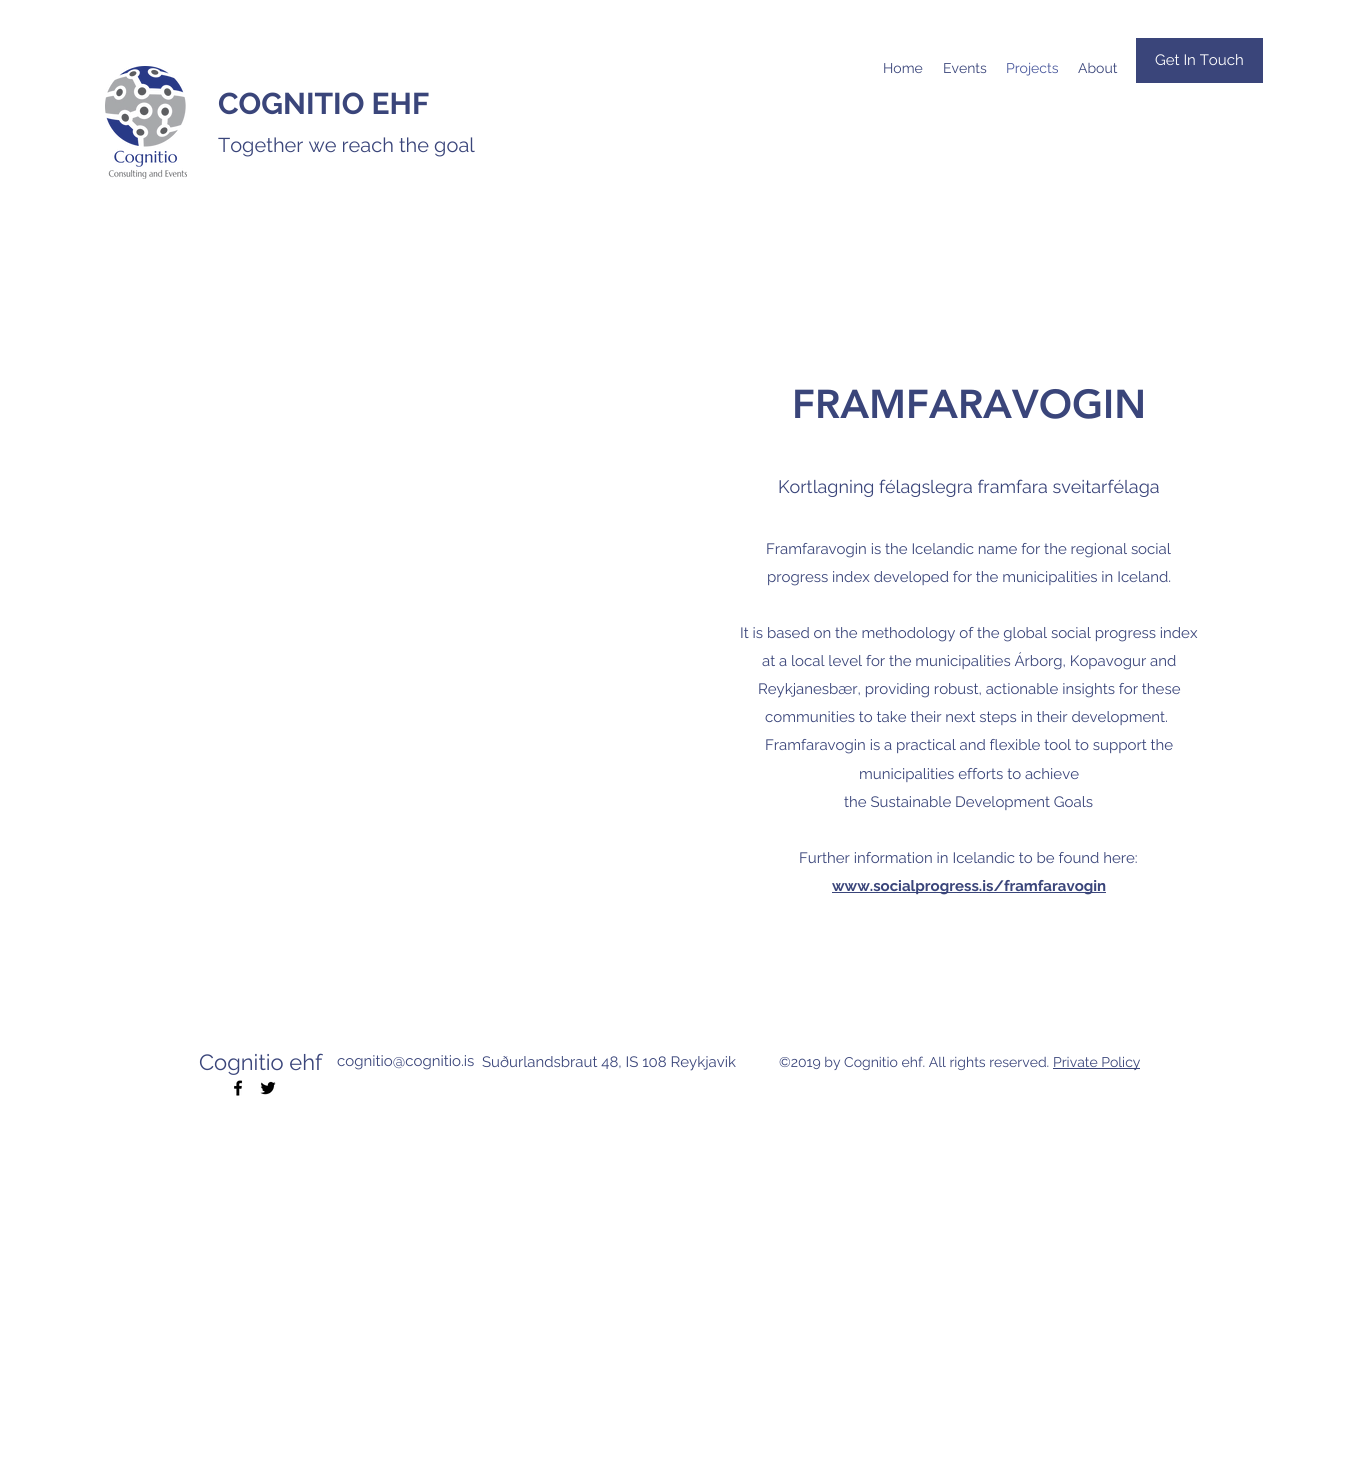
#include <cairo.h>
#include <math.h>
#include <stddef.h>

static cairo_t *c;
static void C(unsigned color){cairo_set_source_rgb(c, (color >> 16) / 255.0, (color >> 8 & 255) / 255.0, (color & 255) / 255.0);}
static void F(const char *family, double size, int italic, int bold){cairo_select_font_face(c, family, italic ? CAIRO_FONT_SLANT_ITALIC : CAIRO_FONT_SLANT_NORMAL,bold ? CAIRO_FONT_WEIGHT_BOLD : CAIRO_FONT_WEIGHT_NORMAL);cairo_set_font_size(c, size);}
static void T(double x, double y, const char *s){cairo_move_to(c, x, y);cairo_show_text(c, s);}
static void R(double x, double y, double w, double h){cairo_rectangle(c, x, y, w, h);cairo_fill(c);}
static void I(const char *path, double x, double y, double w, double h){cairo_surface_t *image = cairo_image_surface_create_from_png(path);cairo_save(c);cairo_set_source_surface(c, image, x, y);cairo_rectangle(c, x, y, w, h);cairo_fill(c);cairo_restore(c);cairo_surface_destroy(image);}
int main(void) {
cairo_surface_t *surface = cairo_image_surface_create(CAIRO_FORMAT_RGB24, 1345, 1462);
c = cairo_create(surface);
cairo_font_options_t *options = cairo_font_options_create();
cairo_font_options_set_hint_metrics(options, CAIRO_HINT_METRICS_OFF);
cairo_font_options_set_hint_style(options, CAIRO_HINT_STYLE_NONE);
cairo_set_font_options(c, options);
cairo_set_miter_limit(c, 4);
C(0xffffff);
cairo_paint(c);
C(0x3a457a);
R(1136,38,127,45);
F("Raleway",15,0,0);
C(0xffffff);
T(1155,65,"Get In Touch");
F("Raleway",14,0,0);
C(0x3a457a);
T(883,73,"Home");
T(943,73,"Events");
C(0x4a599d);
T(1006,73,"Projects");
C(0x3a457a);
T(1078,73,"About");
I("1.png",105,66,82,113);
F("Raleway",30,0,1);
T(218,114,"COGNITIO EHF");
F("Raleway",20,0,0);
T(218,152,"Together we reach the goal");
F("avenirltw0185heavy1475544 Black",40,0,0);
T(792,418,"FRAMFARAVOGIN");
F("Raleway",18,0,0);
T(778,493,"Kortlagning félagslegra framfara sveitarfélaga");
F("Raleway",15,0,0);
T(766,554,"Framfaravogin is the Icelandic name for the regional social");
T(767,582,"progress index developed for the municipalities in Iceland.");
T(740,638,"It is based on the methodology of the global social progress index");
T(762,666,"at a local level for the municipalities Árborg, Kopavogur and");
T(758,694,"Reykjanesbær, providing robust, actionable insights for these");
T(765,722,"communities to take their next steps in their development.");
T(765,750,"Framfaravogin is a practical and flexible tool to support the");
T(859,779,"municipalities efforts to achieve");
T(844,807,"the Sustainable Development Goals");
T(799,863,"Further information in Icelandic to be found here:");
R(832,892,274,1);
F("Raleway",15,0,1);
T(832,891,"www.socialprogress.is/framfaravogin");
F("Raleway",22,0,0);
T(199,1070,"Cognitio ehf");
F("Raleway",15,0,0);
T(337,1066,"cognitio@cognitio.is");
T(482,1067,"Suðurlandsbraut 48, IS 108 Reykjavik");
F("Raleway",14,0,0);
T(779,1067,"©2019 by Cognitio ehf. All rights reserved.");
R(1053,1068,87,1);
T(1053,1067,"Private Policy");
I("2.png",234,1080,9,16);
I("3.png",260,1081,16,14);
cairo_surface_write_to_png(surface, "o.png");
cairo_font_options_destroy(options);
cairo_destroy(c);
cairo_surface_destroy(surface);
return 0;
}
